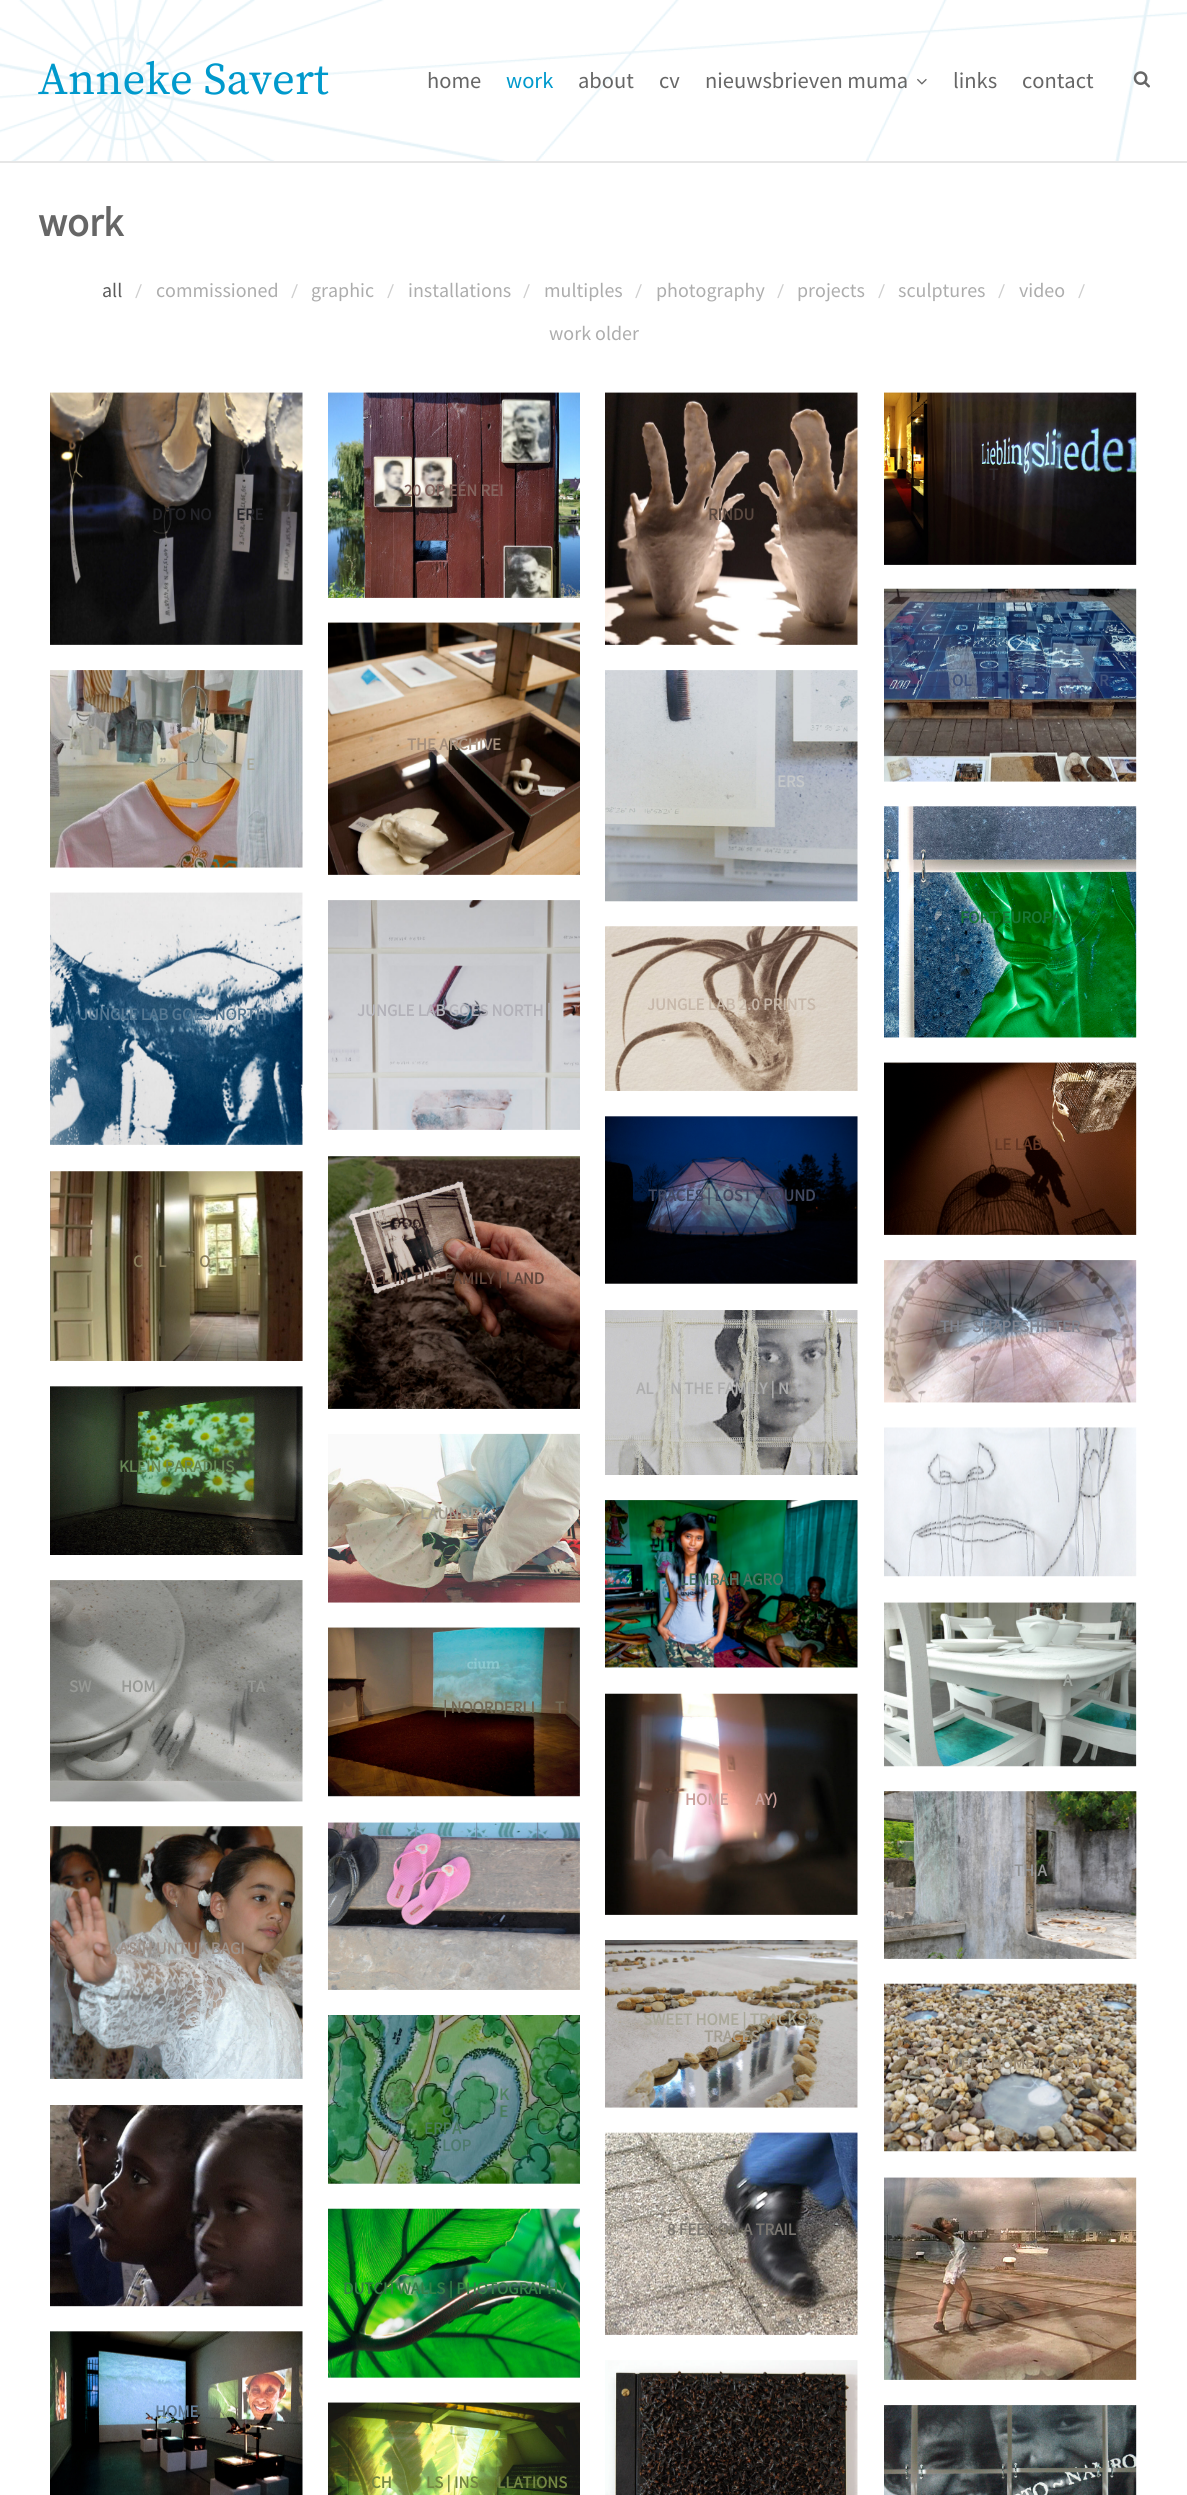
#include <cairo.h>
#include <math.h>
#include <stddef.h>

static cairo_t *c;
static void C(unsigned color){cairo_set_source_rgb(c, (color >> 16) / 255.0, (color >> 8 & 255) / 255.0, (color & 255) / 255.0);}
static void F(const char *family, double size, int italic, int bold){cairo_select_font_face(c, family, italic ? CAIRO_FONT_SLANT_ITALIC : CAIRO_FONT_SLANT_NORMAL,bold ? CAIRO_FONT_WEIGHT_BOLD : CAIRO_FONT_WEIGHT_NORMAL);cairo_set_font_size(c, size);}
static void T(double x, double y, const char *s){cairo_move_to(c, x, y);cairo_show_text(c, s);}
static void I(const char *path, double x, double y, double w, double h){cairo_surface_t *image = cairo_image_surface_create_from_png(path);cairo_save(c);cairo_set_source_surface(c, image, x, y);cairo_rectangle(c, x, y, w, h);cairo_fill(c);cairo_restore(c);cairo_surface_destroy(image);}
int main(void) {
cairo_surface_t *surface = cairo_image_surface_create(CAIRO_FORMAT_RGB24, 1187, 2495);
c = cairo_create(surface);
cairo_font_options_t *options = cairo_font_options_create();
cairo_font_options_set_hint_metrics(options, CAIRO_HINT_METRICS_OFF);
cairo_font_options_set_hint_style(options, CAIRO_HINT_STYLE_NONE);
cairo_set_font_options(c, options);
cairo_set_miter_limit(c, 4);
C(0xffffff);
cairo_paint(c);
C(0xe6e6e6);
cairo_new_path(c);
cairo_move_to(c,0,161);
cairo_line_to(c,0,163);
cairo_line_to(c,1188,163);
cairo_line_to(c,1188,0);
cairo_line_to(c,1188,161);
cairo_close_path(c);
cairo_fill(c);
I("1.png",0,0,1187,161);
F("Source Serif Pro",45,0,0);
C(0x0099cc);
T(38,94,"Anneke Savert");
F("Source Sans Pro",22.5,0,0);
C(0x666666);
T(427,88,"home");
C(0x0099cc);
T(506,88,"work");
C(0x666666);
T(578,88,"about");
T(659,88,"cv");
T(705,88,"nieuwsbrieven muma");
I("2.png",917,78,10,7);
T(953,88,"links");
T(1022,88,"contact");
I("3.png",1133,71,17,17);
F("Source Sans Pro",40.5,0,1);
T(38,236,"work");
F("Source Sans Pro",20,0,0);
C(0x5b5b5b);
T(102,297,"all");
F("Roboto",18,0,0);
C(0xcecece);
T(135,297,"/");
F("Source Sans Pro",20,0,0);
C(0xadadad);
T(156,297,"commissioned");
F("Roboto",18,0,0);
C(0xcecece);
T(291,297,"/");
F("Source Sans Pro",20,0,0);
C(0xadadad);
T(311,297,"graphic");
F("Roboto",18,0,0);
C(0xcecece);
T(387,297,"/");
F("Source Sans Pro",20,0,0);
C(0xadadad);
T(408,297,"installations");
F("Roboto",18,0,0);
C(0xcecece);
T(523,297,"/");
F("Source Sans Pro",20,0,0);
C(0xadadad);
T(544,297,"multiples");
F("Roboto",18,0,0);
C(0xcecece);
T(635,297,"/");
F("Source Sans Pro",20,0,0);
C(0xadadad);
T(656,297,"photography");
F("Roboto",18,0,0);
C(0xcecece);
T(777,297,"/");
F("Source Sans Pro",20,0,0);
C(0xadadad);
T(797,297,"projects");
F("Roboto",18,0,0);
C(0xcecece);
T(878,297,"/");
F("Source Sans Pro",20,0,0);
C(0xadadad);
T(898,297,"sculptures");
F("Roboto",18,0,0);
C(0xcecece);
T(998,297,"/");
F("Source Sans Pro",20,0,0);
C(0xadadad);
T(1019,297,"video");
F("Roboto",18,0,0);
C(0xcecece);
T(1078,297,"/");
F("Source Sans Pro",20,0,0);
C(0xadadad);
T(549,340,"work older");
I("4.png",884,392,253,173);
F("Source Sans Pro",16.9,0,1);
C(0x312d31);
T(989,480,"T");
I("5.png",328,392,252,206);
C(0x84655f);
T(404,496,"20 OP EEN REI");
I("6.png",50,392,253,253);
C(0x232328);
T(152,520,"D TO NO");
T(236,520,"ERE");
I("7.png",605,392,253,253);
C(0x59483f);
T(708,520,"RINDU");
I("8.png",884,588,253,194);
C(0x41537b);
T(952,686,"OL");
T(1099,686,"R");
I("9.png",328,622,252,253);
C(0xa6907d);
T(407,750,"THE ARCHIVE");
I("10.png",50,670,253,198);
C(0xa9a898);
T(138,770,"’");
T(159,770,"”");
T(246,770,"E");
I("11.png",605,670,253,232);
C(0xc5c8c9);
T(777,787,"ERS");
I("12.png",884,806,253,232);
C(0x177737);
T(960,923,"FORT EUROPA");
I("13.png",50,892,253,253);
C(0x567892);
T(80,1020,"JUNGLE LAB GOES NORTH |");
I("14.png",328,900,252,230);
C(0xb2b1b8);
T(357,1016,"JUNGLE LAB GOES NORTH |");
I("15.png",605,926,253,165);
C(0xc7b8aa);
T(647,1010,"JUNGLE LAB 2.0 PRINTS");
I("16.png",884,1062,253,173);
C(0x653824);
T(994,1150,"LE LAB");
I("17.png",605,1116,253,168);
C(0x424960);
T(648,1201,"TRACES | LOST • FOUND");
I("18.png",50,1171,253,190);
C(0x8a7e5c);
T(133,1267,"C");
T(158,1267,"L");
T(199,1267,"O");
I("19.png",328,1156,252,253);
C(0x60453b);
T(364,1284,"ALL IN THE FAMILY | LAND");
I("20.png",884,1260,253,143);
C(0x818590);
T(940,1332,"THE SHAPESHIFTER");
I("21.png",605,1310,253,165);
C(0xadadad);
T(636,1394,"AL");
T(670,1394,"N THE FAMILY | N");
I("22.png",50,1386,253,169);
C(0x668755);
T(119,1472,"KLEIN PARADIJS");
I("23.png",884,1427,253,150);
I("24.png",328,1433,252,170);
C(0xa29d91);
T(420,1519,"LAUNDRY");
I("25.png",605,1500,253,168);
C(0x4c7665);
T(680,1585,"LEMBAH AGRO");
I("26.png",50,1580,253,222);
C(0x979995);
T(69,1692,"SW");
T(121,1692,"HOM");
T(247,1692,"TA");
I("27.png",884,1602,253,165);
C(0x9ea49f);
T(1063,1686,"A");
I("28.png",328,1627,252,170);
C(0x716855);
T(443,1713,"| NOORDERLI");
T(555,1713,"T");
I("29.png",605,1693,253,222);
C(0xca9f9a);
T(685,1805,"HOME");
T(755,1805,"AY)");
I("30.png",328,1822,252,168);
I("31.png",884,1791,253,168);
C(0x929394);
T(1014,1876,"TH A");
I("32.png",50,1826,253,253);
C(0x9c9189);
T(109,1954,"KASIH UNTUK BAGI");
I("33.png",605,1940,253,168);
C(0xa9a898);
T(643,2025,"SWEET HOME | TRACKS &");
C(0xa29d91);
T(704,2042,"TRACES");
I("34.png",884,1983,253,169);
C(0x9a8b75);
T(938,2069,"SWEET HOME | LOST");
I("35.png",50,2105,253,202);
I("36.png",328,2015,252,169);
C(0x4e825e);
T(499,2100,"K");
C(0x487b59);
T(442,2117,"C");
T(499,2117,"E");
C(0x4a7a5f);
T(424,2134,"ERPA");
C(0x4e7a6d);
T(442,2151,"LOP");
I("37.png",605,2132,253,203);
C(0x7a7670);
T(667,2235,"8 FEET ON A TRAIL");
I("38.png",884,2177,253,203);
I("39.png",328,2208,252,170);
C(0x337f45);
T(343,2294,"DUTCH WALLS | PHOTOGRAPHY");
I("40.png",50,2331,253,164);
C(0x627c97);
T(155,2417,"HOME");
I("41.png",328,2402,252,93);
C(0x738642);
T(371,2488,"CH");
T(426,2488,"LS | INS");
T(497,2488,"LLATIONS");
I("42.png",605,2360,253,135);
I("43.png",884,2405,253,90);
cairo_surface_write_to_png(surface, "o.png");
cairo_font_options_destroy(options);
cairo_destroy(c);
cairo_surface_destroy(surface);
return 0;
}
